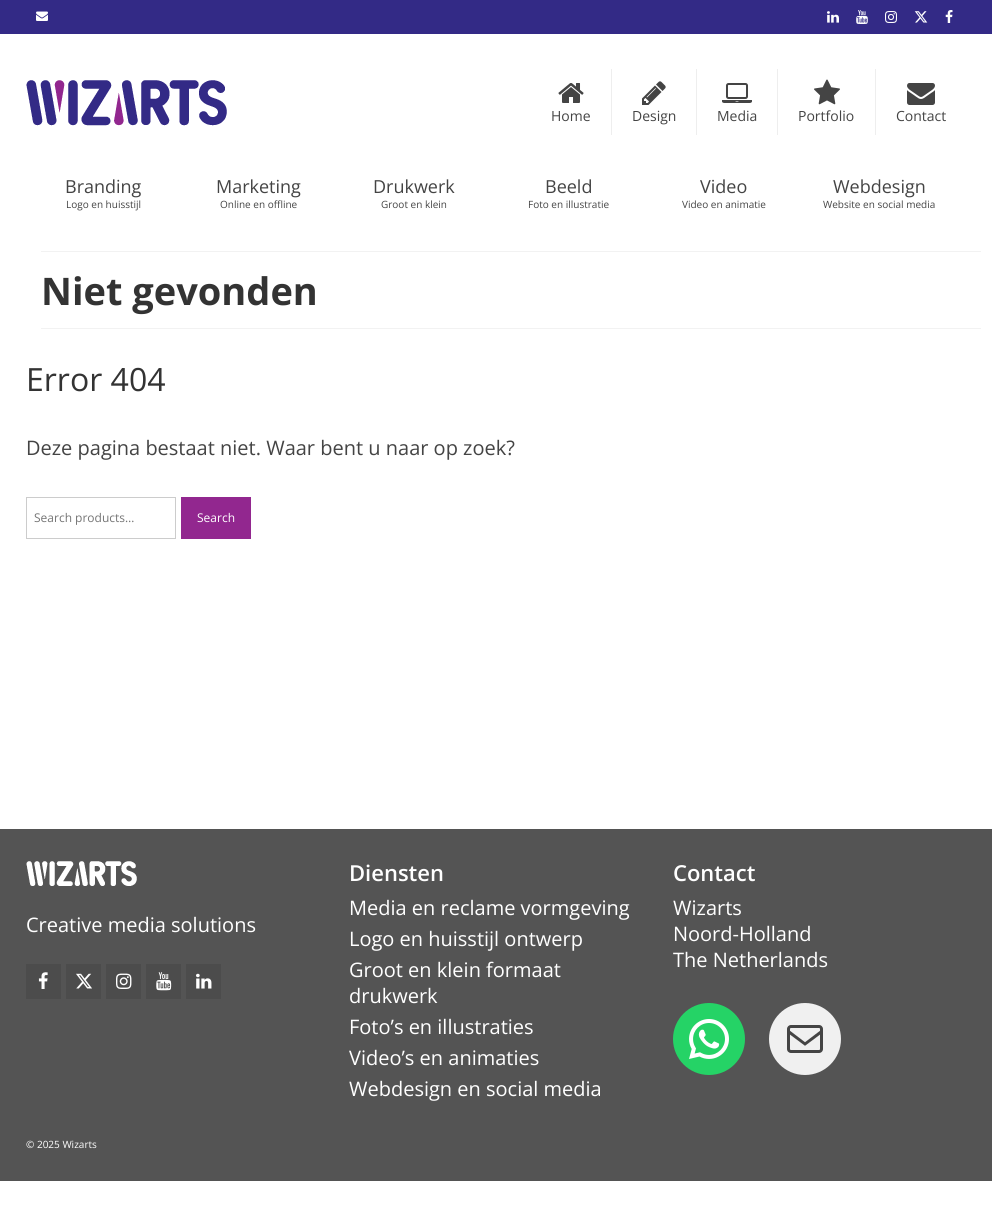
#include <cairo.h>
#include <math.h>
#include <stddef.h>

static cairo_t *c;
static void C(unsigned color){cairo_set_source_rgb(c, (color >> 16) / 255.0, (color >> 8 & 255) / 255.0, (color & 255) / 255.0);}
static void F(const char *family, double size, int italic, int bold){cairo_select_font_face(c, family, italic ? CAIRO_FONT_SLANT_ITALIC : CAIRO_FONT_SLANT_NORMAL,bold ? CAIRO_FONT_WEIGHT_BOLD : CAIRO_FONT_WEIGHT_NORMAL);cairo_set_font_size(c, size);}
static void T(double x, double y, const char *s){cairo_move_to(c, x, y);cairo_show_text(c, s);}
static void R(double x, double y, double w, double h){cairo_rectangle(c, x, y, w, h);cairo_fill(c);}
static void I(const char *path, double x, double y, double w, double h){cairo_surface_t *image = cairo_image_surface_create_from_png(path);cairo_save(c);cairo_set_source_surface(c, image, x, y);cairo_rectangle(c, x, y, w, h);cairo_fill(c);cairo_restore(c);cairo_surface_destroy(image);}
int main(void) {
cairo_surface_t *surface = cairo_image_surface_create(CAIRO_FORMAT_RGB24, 992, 1230);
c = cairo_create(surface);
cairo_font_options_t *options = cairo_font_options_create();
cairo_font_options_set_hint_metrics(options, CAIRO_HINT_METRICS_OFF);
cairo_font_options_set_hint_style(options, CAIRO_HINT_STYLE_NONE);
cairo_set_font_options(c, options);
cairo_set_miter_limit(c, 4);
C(0xffffff);
cairo_paint(c);
C(0x332a86);
R(0,0,992,34);
I("1.png",36,11,12,10);
I("2.png",827,11,12,12);
I("3.png",856,10,12,14);
I("4.png",885,11,12,12);
I("5.png",914,11,14,12);
I("6.png",945,10,8,13);
I("7.png",26,80,201,46);
C(0xeeeeee);
R(611,69,1,66);
I("8.png",558,83,26,20);
F("Open Sans",14,0,0);
C(0x444444);
T(551,121,"Home");
C(0xeeeeee);
R(696,69,1,66);
I("9.png",642,81,24,24);
C(0x444444);
T(632,121,"Design");
C(0xeeeeee);
R(777,69,1,66);
I("10.png",722,83,30,20);
C(0x444444);
T(717,121,"Media");
C(0xeeeeee);
R(875,69,1,66);
I("11.png",814,79,26,26);
C(0x444444);
T(798,121,"Portfolio");
I("12.png",907,83,28,22);
T(896,121,"Contact");
F("Open Sans",18,0,0);
T(65,193,"Branding");
F("Open Sans",10,0,0);
T(66,208,"Logo en huisstijl");
F("Open Sans",18,0,0);
T(216,193,"Marketing");
F("Open Sans",10,0,0);
T(220,208,"Online en offline");
F("Open Sans",18,0,0);
T(373,193,"Drukwerk");
F("Open Sans",10,0,0);
T(381,208,"Groot en klein");
F("Open Sans",18,0,0);
T(545,193,"Beeld");
F("Open Sans",10,0,0);
T(528,208,"Foto en illustratie");
F("Open Sans",18,0,0);
T(700,193,"Video");
F("Open Sans",10,0,0);
T(682,208,"Video en animatie");
F("Open Sans",18,0,0);
T(833,193,"Webdesign");
F("Open Sans",10,0,0);
T(823,208,"Website en social media");
C(0xf2f2f2);
R(41,251,940,1);
R(41,328,940,1);
F("Open Sans",38,0,1);
C(0x333333);
T(41,305,"Niet gevonden");
F("Open Sans",32,0,0);
T(26,391,"Error 404");
F("Open Sans",20,0,0);
C(0x444444);
T(26,455,"Deze pagina bestaat niet. Waar bent u naar op zoek?");
cairo_rectangle(c,26.5,497.5,149,41);
C(0xcccccc);
cairo_set_line_width(c,1);
cairo_stroke(c);
F("Open Sans",12,0,0);
C(0x757575);
T(34,522,"Search products…");
C(0x92278f);
R(181,497,70,42);
C(0xffffff);
T(197,522,"Search");
C(0x545454);
R(0,829,992,352);
I("13.png",26,861,111,25);
F("Open Sans",20,0,0);
C(0xffffff);
T(26,932,"Creative media solutions");
C(0x4c4c4c);
R(26,964,35,35);
I("14.png",38,972,10,17);
R(66,964,35,35);
I("15.png",76,973,16,16);
R(106,964,35,35);
I("16.png",116,973,16,16);
R(146,964,35,35);
I("17.png",156,972,16,19);
R(186,964,35,35);
I("18.png",196,973,16,16);
F("Open Sans SemiBold",22,0,0);
C(0xffffff);
T(349,881,"Diensten");
F("Open Sans",20,0,0);
T(349,915,"Media en reclame vormgeving");
T(349,946,"Logo en huisstijl ontwerp");
T(349,977,"Groot en klein formaat");
T(349,1003,"drukwerk");
T(349,1034,"Foto’s en illustraties");
T(349,1065,"Video’s en animaties");
T(349,1096,"Webdesign en social media");
F("Open Sans SemiBold",22,0,0);
T(673,881,"Contact");
F("Open Sans",20,0,0);
T(673,915,"Wizarts");
T(673,941,"Noord-Holland");
T(673,967,"The Netherlands");
C(0x25d366);
cairo_new_path(c);
cairo_arc(c,709,1039,36,0,2 * M_PI);
cairo_fill(c);
I("19.png",689,1019,40,40);
C(0xf0f0f0);
cairo_arc(c,805,1039,36,0,2 * M_PI);
cairo_fill(c);
I("20.png",787,1025,36,28);
F("Open Sans",10,0,0);
C(0xffffff);
T(26,1148,"© 2025 Wizarts");
cairo_surface_write_to_png(surface, "o.png");
cairo_font_options_destroy(options);
cairo_destroy(c);
cairo_surface_destroy(surface);
return 0;
}
